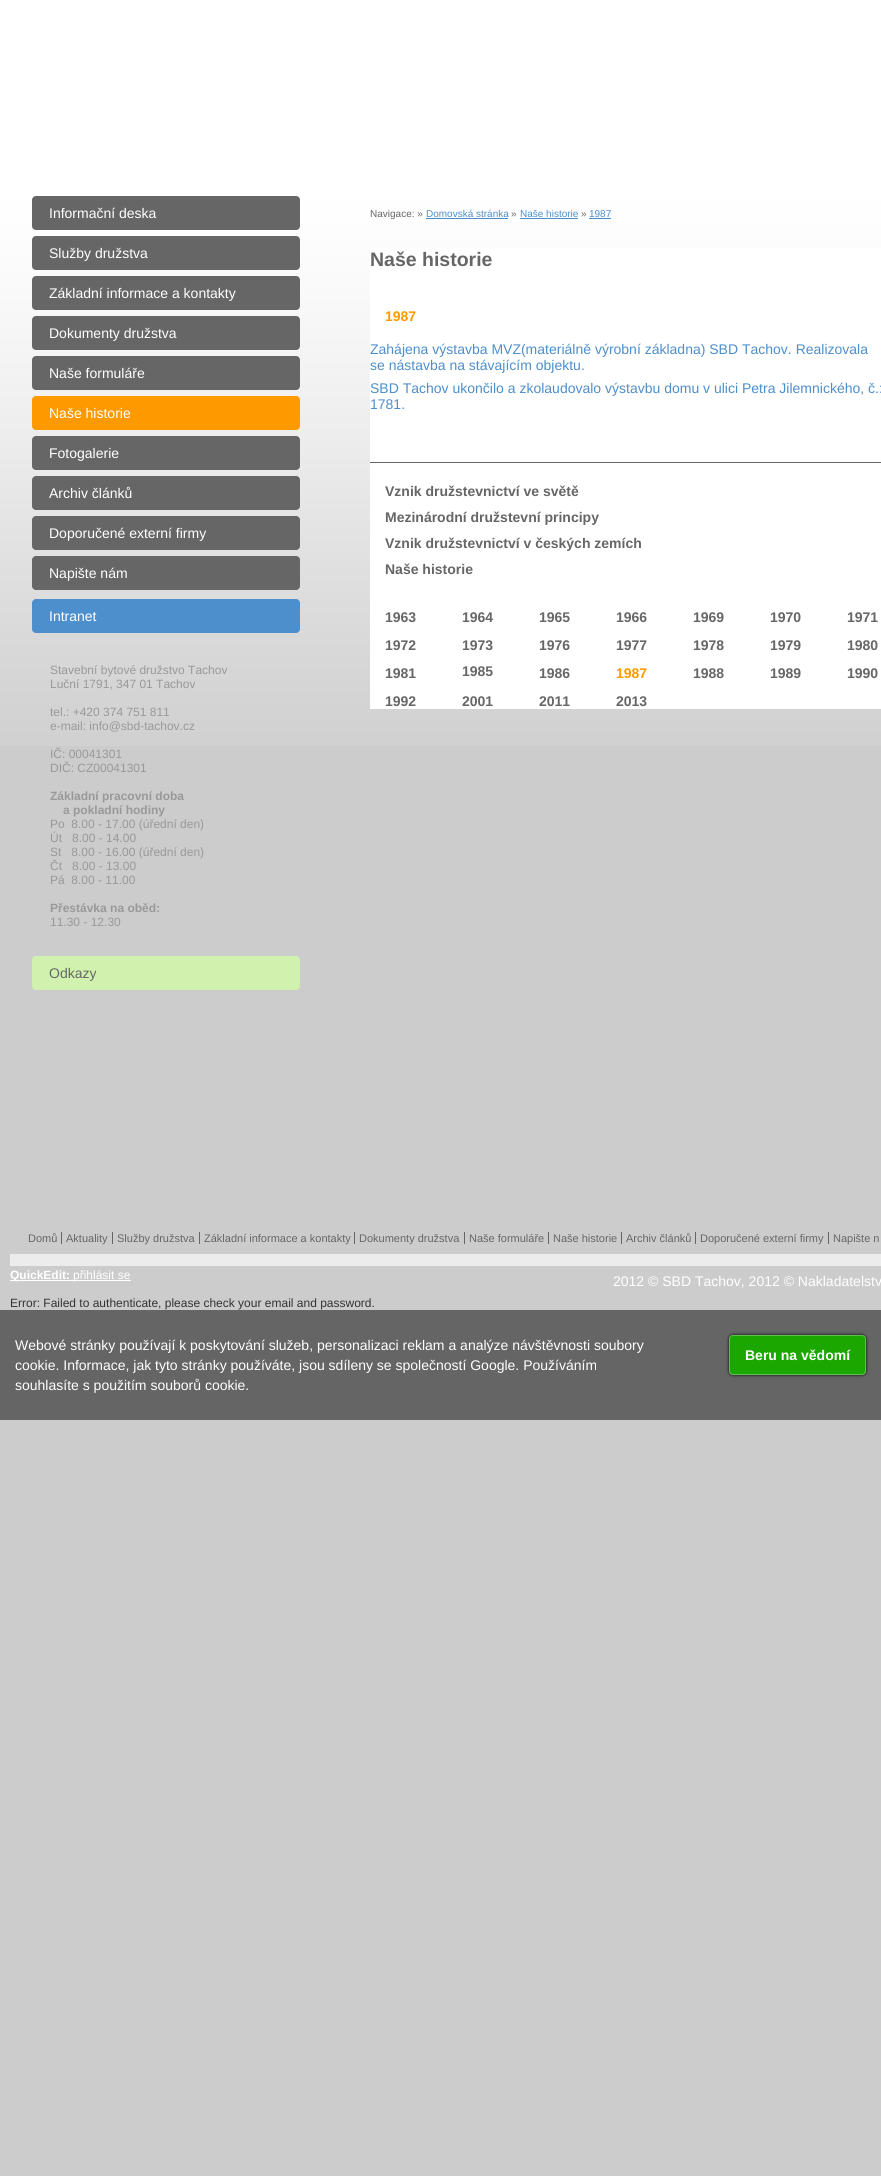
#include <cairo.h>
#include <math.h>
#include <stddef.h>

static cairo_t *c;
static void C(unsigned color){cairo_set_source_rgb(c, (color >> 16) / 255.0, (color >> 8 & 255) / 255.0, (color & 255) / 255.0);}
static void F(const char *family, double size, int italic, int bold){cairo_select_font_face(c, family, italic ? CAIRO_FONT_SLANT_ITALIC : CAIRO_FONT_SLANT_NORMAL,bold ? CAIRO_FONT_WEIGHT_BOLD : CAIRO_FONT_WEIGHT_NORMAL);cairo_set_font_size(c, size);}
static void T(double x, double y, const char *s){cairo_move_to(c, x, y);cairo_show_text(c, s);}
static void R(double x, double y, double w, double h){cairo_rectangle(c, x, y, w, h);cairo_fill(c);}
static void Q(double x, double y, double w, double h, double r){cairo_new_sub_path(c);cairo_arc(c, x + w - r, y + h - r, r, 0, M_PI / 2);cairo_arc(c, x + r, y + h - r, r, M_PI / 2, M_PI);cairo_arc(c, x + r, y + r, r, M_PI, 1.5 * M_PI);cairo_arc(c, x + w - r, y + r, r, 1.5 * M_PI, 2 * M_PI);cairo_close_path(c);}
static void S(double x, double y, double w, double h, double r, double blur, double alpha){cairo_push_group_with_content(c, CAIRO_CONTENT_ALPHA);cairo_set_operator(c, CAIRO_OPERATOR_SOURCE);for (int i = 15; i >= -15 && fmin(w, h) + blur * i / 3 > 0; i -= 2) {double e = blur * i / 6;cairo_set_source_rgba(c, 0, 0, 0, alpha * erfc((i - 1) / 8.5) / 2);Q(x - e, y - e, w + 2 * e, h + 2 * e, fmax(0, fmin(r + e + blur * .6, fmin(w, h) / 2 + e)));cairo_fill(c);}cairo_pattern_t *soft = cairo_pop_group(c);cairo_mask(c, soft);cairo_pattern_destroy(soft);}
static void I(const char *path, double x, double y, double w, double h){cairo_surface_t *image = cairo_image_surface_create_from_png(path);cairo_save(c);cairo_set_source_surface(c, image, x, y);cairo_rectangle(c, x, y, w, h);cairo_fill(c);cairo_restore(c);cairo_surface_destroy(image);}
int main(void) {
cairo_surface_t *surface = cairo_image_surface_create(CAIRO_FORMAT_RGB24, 881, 2176);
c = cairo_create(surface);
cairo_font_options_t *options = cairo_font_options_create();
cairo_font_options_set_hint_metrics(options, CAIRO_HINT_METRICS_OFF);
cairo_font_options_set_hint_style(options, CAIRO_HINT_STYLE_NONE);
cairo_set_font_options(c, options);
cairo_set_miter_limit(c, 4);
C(0xcccccc);
cairo_paint(c);
I("1.png",0,0,881,746);
C(0x666666);
Q(32,196,268,34,4);
cairo_fill(c);
F("Liberation Sans",14,0,0);
C(0xffffff);
T(49,218,"Informační deska");
C(0x666666);
Q(32,236,268,34,4);
cairo_fill(c);
C(0xffffff);
T(49,258,"Služby družstva");
C(0x666666);
Q(32,276,268,34,4);
cairo_fill(c);
C(0xffffff);
T(49,298,"Základní informace a kontakty");
C(0x666666);
Q(32,316,268,34,4);
cairo_fill(c);
C(0xffffff);
T(49,338,"Dokumenty družstva");
C(0x666666);
Q(32,356,268,34,4);
cairo_fill(c);
C(0xffffff);
T(49,378,"Naše formuláře");
C(0xff9900);
Q(32,396,268,34,4);
cairo_fill(c);
C(0xffffff);
T(49,418,"Naše historie");
C(0x666666);
Q(32,436,268,34,4);
cairo_fill(c);
C(0xffffff);
T(49,458,"Fotogalerie");
C(0x666666);
Q(32,476,268,34,4);
cairo_fill(c);
C(0xffffff);
T(49,498,"Archiv článků");
C(0x666666);
Q(32,516,268,34,4);
cairo_fill(c);
C(0xffffff);
T(49,538,"Doporučené externí firmy");
C(0x666666);
Q(32,556,268,34,4);
cairo_fill(c);
C(0xffffff);
T(49,578,"Napište nám");
C(0x4d8ecc);
Q(32,599,268,34,4);
cairo_fill(c);
C(0xffffff);
T(49,621,"Intranet");
F("Liberation Sans",12,0,0);
C(0x999999);
T(50,674,"Stavební bytové družstvo Tachov");
T(50,688,"Luční 1791, 347 01 Tachov");
T(50,716,"tel.: +420 374 751 811");
T(50,730,"e-mail: info@sbd-tachov.cz");
T(50,758,"IČ: 00041301");
T(50,772,"DIČ: CZ00041301");
F("Liberation Sans",12,0,1);
T(50,800,"Základní pracovní doba");
T(63,814,"a pokladní hodiny");
F("Liberation Sans",12,0,0);
T(50,828,"Po  8.00 - 17.00 (úřední den)");
T(50,842,"Út   8.00 - 14.00");
T(50,856,"St   8.00 - 16.00 (úřední den)");
T(50,870,"Čt   8.00 - 13.00");
T(50,884,"Pá  8.00 - 11.00");
F("Liberation Sans",12,0,1);
T(50,912,"Přestávka na oběd:");
F("Liberation Sans",12,0,0);
T(50,926,"11.30 - 12.30");
C(0xd1f2ae);
Q(32,956,268,34,4);
cairo_fill(c);
F("Liberation Sans",14,0,0);
C(0x666666);
T(49,978,"Odkazy");
F("Liberation Sans",10,0,0);
T(370,217,"Navigace: »");
C(0x4d8ecc);
T(426,217,"Domovská stránka");
R(426,218,82,1);
C(0x666666);
T(511,217,"»");
C(0x4d8ecc);
T(520,217,"Naše historie");
R(520,218,58,1);
C(0x666666);
T(581,217,"»");
C(0x4d8ecc);
T(589,217,"1987");
R(589,218,22,1);
C(0xffffff);
R(370,248,511,461);
F("Liberation Sans",19.5,0,1);
C(0x666666);
T(370,266,"Naše historie");
C(0x656565);
R(370,462,511,1);
F("Liberation Sans",14,0,1);
C(0xff9900);
T(385,321,"1987");
F("Liberation Sans",14,0,0);
C(0x4d8ecc);
T(370,354,"Zahájena výstavba MVZ(materiálně výrobní základna) SBD Tachov. Realizovala");
T(370,370,"se nástavba na stávajícím objektu.");
T(370,393,"SBD Tachov ukončilo a zkolaudovalo výstavbu domu v ulici Petra Jilemnického, č.:");
T(370,409,"1781.");
F("Liberation Sans",14,0,1);
C(0x666666);
T(385,496,"Vznik družstevnictví ve světě");
T(385,522,"Mezinárodní družstevní principy");
T(385,548,"Vznik družstevnictví v českých zemích");
T(385,574,"Naše historie");
T(385,622,"1963");
T(462,622,"1964");
T(539,622,"1965");
T(616,622,"1966");
T(693,622,"1969");
T(770,622,"1970");
T(847,622,"1971");
T(385,650,"1972");
T(462,650,"1973");
T(539,650,"1976");
T(616,650,"1977");
T(693,650,"1978");
T(770,650,"1979");
T(847,650,"1980");
T(385,678,"1981");
T(462,676,"1985");
T(539,678,"1986");
C(0xff9900);
T(616,678,"1987");
C(0x666666);
T(693,678,"1988");
T(770,678,"1989");
T(847,678,"1990");
T(385,706,"1992");
T(462,706,"2001");
T(539,706,"2011");
T(616,706,"2013");
F("Liberation Sans",11,0,0);
T(28,1242,"Domů");
C(0x656565);
R(61,1232,1,12);
C(0x666666);
T(66,1242,"Aktuality");
C(0x656565);
R(112,1232,1,12);
C(0x666666);
T(117,1242,"Služby družstva");
C(0x656565);
R(199,1232,1,12);
C(0x666666);
T(204,1242,"Základní informace a kontakty");
C(0x656565);
R(354,1232,1,12);
C(0x666666);
T(359,1242,"Dokumenty družstva");
C(0x656565);
R(464,1232,1,12);
C(0x666666);
T(469,1242,"Naše formuláře");
C(0x656565);
R(548,1232,1,12);
C(0x666666);
T(553,1242,"Naše historie");
C(0x656565);
R(621,1232,1,12);
C(0x666666);
T(626,1242,"Archiv článků");
C(0x656565);
R(695,1232,1,12);
C(0x666666);
T(700,1242,"Doporučené externí firmy");
C(0x656565);
R(828,1232,1,12);
C(0x666666);
T(833,1242,"Napište n");
C(0xececed);
R(10,1254,871,12);
C(0xffffff);
R(10,1280,121,1);
F("Liberation Sans",12,0,1);
T(10,1279,"QuickEdit:");
F("Liberation Sans",12,0,0);
T(73,1279,"přihlásit se");
F("Liberation Sans",14,0,0);
T(613,1286,"2012 © SBD Tachov, 2012 © Nakladatelstv");
F("Liberation Sans",12,0,0);
C(0x333333);
T(10,1307,"Error: Failed to authenticate, please check your email and password.");
C(0x656565);
R(0,1310,881,110);
F("Liberation Sans",14,0,0);
C(0xffffff);
T(15,1350,"Webové stránky používají k poskytování služeb, personalizaci reklam a analýze návštěvnosti soubory");
T(15,1370,"cookie. Informace, jak tyto stránky používáte, jsou sdíleny se společností Google. Používáním");
T(15,1390,"souhlasíte s použitím souborů cookie.");
C(0x000000);
S(729,1335,137,40,4,1.5,1);
C(0x1ba700);
Q(729,1335,137,40,4);
cairo_fill(c);
Q(729.5,1335.5,136,39,3.5);
cairo_set_source_rgba(c,1,1,1,0.3);
cairo_set_line_width(c,1);
cairo_stroke(c);
F("Liberation Sans",14,0,1);
C(0xffffff);
T(745,1360,"Beru na vědomí");
cairo_surface_write_to_png(surface, "o.png");
cairo_font_options_destroy(options);
cairo_destroy(c);
cairo_surface_destroy(surface);
return 0;
}
